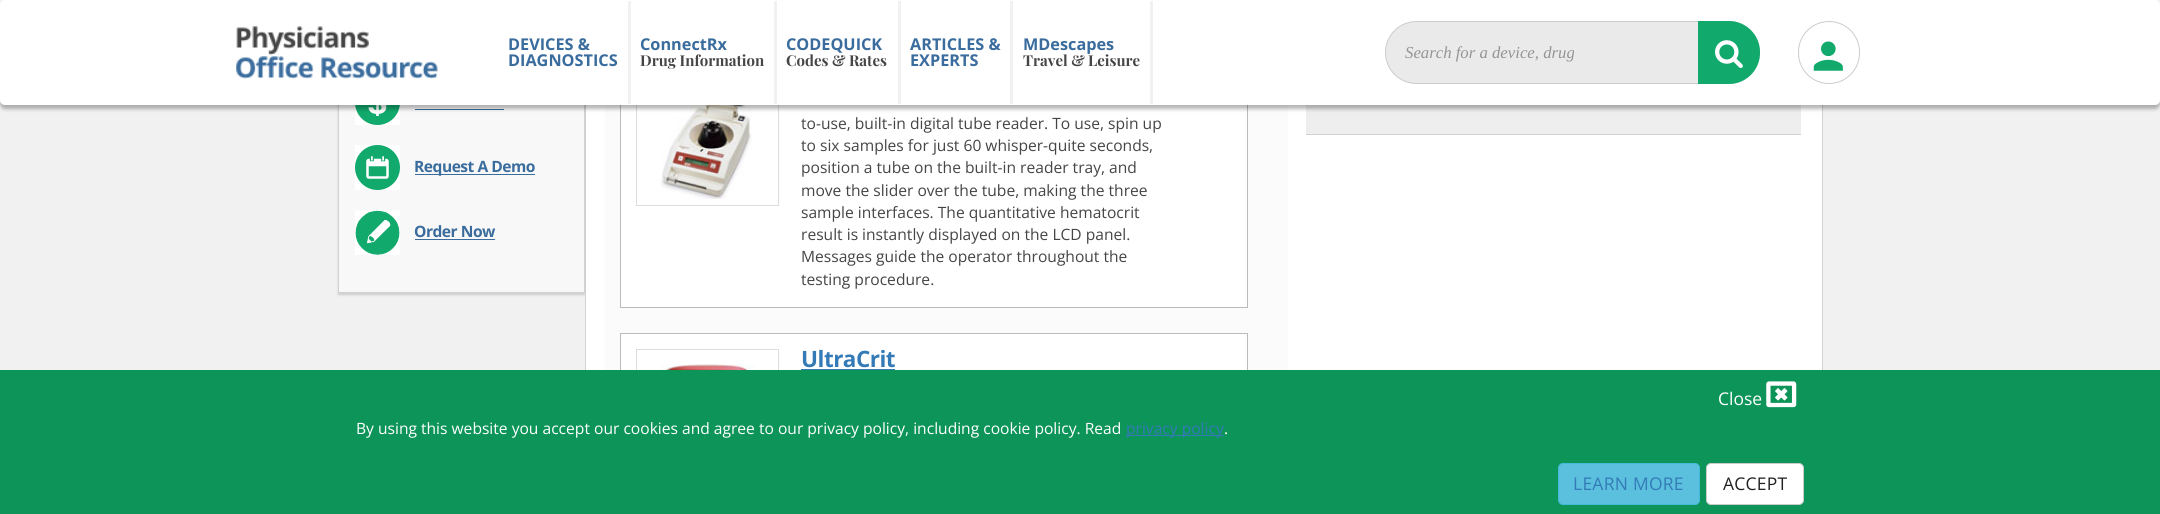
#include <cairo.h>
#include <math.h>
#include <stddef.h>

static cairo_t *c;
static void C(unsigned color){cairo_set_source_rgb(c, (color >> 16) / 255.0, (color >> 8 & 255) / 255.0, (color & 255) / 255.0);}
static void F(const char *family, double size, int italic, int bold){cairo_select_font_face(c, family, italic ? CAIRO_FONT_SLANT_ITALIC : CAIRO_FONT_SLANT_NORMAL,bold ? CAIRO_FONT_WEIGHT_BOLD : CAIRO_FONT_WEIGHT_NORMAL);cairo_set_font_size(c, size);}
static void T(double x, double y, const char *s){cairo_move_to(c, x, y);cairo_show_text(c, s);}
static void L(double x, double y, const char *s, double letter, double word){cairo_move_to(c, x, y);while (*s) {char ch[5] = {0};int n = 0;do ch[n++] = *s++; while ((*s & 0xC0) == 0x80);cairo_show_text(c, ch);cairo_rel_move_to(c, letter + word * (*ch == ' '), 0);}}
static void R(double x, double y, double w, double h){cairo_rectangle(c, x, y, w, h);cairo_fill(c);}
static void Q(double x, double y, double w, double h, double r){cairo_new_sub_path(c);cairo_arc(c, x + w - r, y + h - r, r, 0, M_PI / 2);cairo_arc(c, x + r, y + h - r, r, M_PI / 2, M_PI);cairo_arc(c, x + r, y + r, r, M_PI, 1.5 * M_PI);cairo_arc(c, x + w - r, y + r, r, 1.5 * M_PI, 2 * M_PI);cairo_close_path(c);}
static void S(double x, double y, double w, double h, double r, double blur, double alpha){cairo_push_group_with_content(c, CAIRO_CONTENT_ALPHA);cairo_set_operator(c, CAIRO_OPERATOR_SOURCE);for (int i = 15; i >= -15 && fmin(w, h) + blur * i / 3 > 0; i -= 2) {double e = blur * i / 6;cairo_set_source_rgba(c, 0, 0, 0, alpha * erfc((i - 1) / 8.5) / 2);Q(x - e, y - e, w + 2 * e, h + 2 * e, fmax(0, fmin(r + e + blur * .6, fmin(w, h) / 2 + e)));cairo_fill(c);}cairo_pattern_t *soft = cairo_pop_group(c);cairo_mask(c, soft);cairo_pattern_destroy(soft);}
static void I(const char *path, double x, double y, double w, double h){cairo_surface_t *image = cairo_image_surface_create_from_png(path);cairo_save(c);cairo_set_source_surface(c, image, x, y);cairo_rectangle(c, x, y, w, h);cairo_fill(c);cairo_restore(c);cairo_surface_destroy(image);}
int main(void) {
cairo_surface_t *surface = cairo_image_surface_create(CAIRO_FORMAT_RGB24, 2160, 514);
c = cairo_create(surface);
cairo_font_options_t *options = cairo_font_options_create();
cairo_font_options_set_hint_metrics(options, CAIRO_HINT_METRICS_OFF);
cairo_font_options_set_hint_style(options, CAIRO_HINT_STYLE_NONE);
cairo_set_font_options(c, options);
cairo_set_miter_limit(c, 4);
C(0xf1f1f1);
cairo_paint(c);
C(0x454545);
S(338,-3,247,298,0,1,.2);
C(0xf8f8f8);
R(339,105,245,187);
cairo_rectangle(c,338.5,-.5,246,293);
C(0xd2d2d2);
cairo_set_line_width(c,1);
cairo_stroke(c);
I("4.png",355,105,45,20);
C(0x3a6c9d);
R(415,109,89,1);
C(0xffffff);
R(586,105,1236,265);
cairo_rectangle(c,585.5,-.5,1237,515);
C(0xd2d2d2);
cairo_stroke(c);
C(0xfbfbfb);
R(605,105,683,265);
C(0xffffff);
R(621,105,626,202);
cairo_rectangle(c,620.5,19.5,627,288);
C(0xbbbbbb);
cairo_stroke(c);
cairo_rectangle(c,636.5,35.5,142,170);
C(0xdddddd);
cairo_stroke(c);
I("7.png",660,105,92,94);
C(0xeeeeee);
R(1306,105,495,29);
C(0x000000);
S(0,4,2160,105,5,2,.29);
C(0xffffff);
Q(0,0,2160,105,5);
cairo_fill(c);
I("1.png",236,26,202,53);
C(0xf1f1f1);
R(628,1,3,103);
F("Open Sans",16.25,0,1);
C(0x3a6c9d);
T(508,50,"DEVICES &");
T(508,66,"DIAGNOSTICS");
C(0xf1f1f1);
R(774,1,3,103);
C(0x3a6c9d);
T(640,50,"ConnectRx");
F("Playfair Display",15,0,1);
C(0x454545);
T(640,66,"Drug Information");
C(0xf1f1f1);
R(898,1,3,103);
F("Open Sans",16.25,0,1);
C(0x3a6c9d);
T(786,50,"CODEQUICK");
F("Playfair Display",15,0,1);
C(0x454545);
T(786,66,"Codes & Rates");
C(0xf1f1f1);
R(1010,1,3,103);
F("Open Sans",16.25,0,1);
C(0x3a6c9d);
T(910,50,"ARTICLES &");
T(910,66,"EXPERTS");
C(0xf1f1f1);
R(1150,1,3,103);
C(0x3a6c9d);
T(1023,50,"MDescapes");
F("Playfair Display",15,0,1);
C(0x454545);
T(1023,66,"Travel & Leisure");
C(0xeaeaea);
Q(1385.5,21.5,374,62,31);
cairo_fill_preserve(c);
C(0xcccccc);
cairo_stroke(c);
F("Liberation Serif",16.75,1,0);
C(0x949494);
T(1405,58,"Search for a device, drug");
C(0x12a96d);
cairo_new_path(c);
cairo_move_to(c,1698,21);
cairo_line_to(c,1729,21);
cairo_curve_to(c,1746,21,1760,35,1760,52);
cairo_line_to(c,1760,53);
cairo_curve_to(c,1760,70,1746,84,1729,84);
cairo_line_to(c,1698,84);
cairo_close_path(c);
cairo_fill(c);
I("2.png",1715,40,28,28);
Q(1798.5,21.5,61,62,30.5);
C(0xcccccc);
cairo_stroke(c);
I("3.png",1813,41,30,30);
I("5.png",355,145,45,45);
C(0x3a6c9d);
R(415,174,120,1);
F("Open Sans",15.6,0,1);
L(414,172,"Request A Demo",-.5,0);
I("6.png",355,210,45,45);
L(414,237,"Order Now",-.5,0);
R(415,239,80,1);
F("Open Sans",15.6,0,0);
C(0x454545);
T(801,129,"to-use, built-in digital tube reader. To use, spin up");
T(801,151,"to six samples for just 60 whisper-quite seconds,");
T(801,173,"position a tube on the built-in reader tray, and");
T(801,196,"move the slider over the tube, making the three");
T(801,218,"sample interfaces. The quantitative hematocrit");
T(801,240,"result is instantly displayed on the LCD panel.");
T(801,262,"Messages guide the operator throughout the");
T(801,285,"testing procedure.");
C(0xffffff);
R(621,334,626,36);
cairo_rectangle(c,620.5,333.5,627,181);
C(0xbbbbbb);
cairo_stroke(c);
cairo_rectangle(c,636.5,349.5,142,163);
C(0xdddddd);
cairo_stroke(c);
I("8.png",660,364,96,6);
F("Open Sans",22.5,0,1);
C(0x337ab7);
L(801,367,"UltraCrit",-.5,0);
R(801,369,94,1);
C(0xd2d2d2);
R(1306,134,495,1);
C(0x0c9459);
R(0,370,2160,144);
F("Open Sans",17.5,0,0);
C(0xffffff);
T(1718,405,"Close");
I("9.png",1766,381,31,27);
F("Open Sans",15.6,0,0);
T(356,434,"By using this website you accept our cookies and agree to our privacy policy, including cookie policy. Read");
C(0x337ab7);
R(1126,435,98,1);
T(1126,434,"privacy policy");
C(0xffffff);
T(1224,434,".");
C(0x5bc0de);
Q(1558.5,463.5,141,41,4.5);
cairo_fill_preserve(c);
C(0x46b8da);
cairo_stroke(c);
F("Open Sans",17.5,0,0);
C(0x337ab7);
L(1573,490,"LEARN MORE",.25,0);
C(0xffffff);
Q(1706.5,463.5,97,41,4.5);
cairo_fill_preserve(c);
C(0xcccccc);
cairo_stroke(c);
C(0x212121);
L(1723,490,"ACCEPT",.25,0);
cairo_surface_write_to_png(surface, "o.png");
cairo_font_options_destroy(options);
cairo_destroy(c);
cairo_surface_destroy(surface);
return 0;
}
